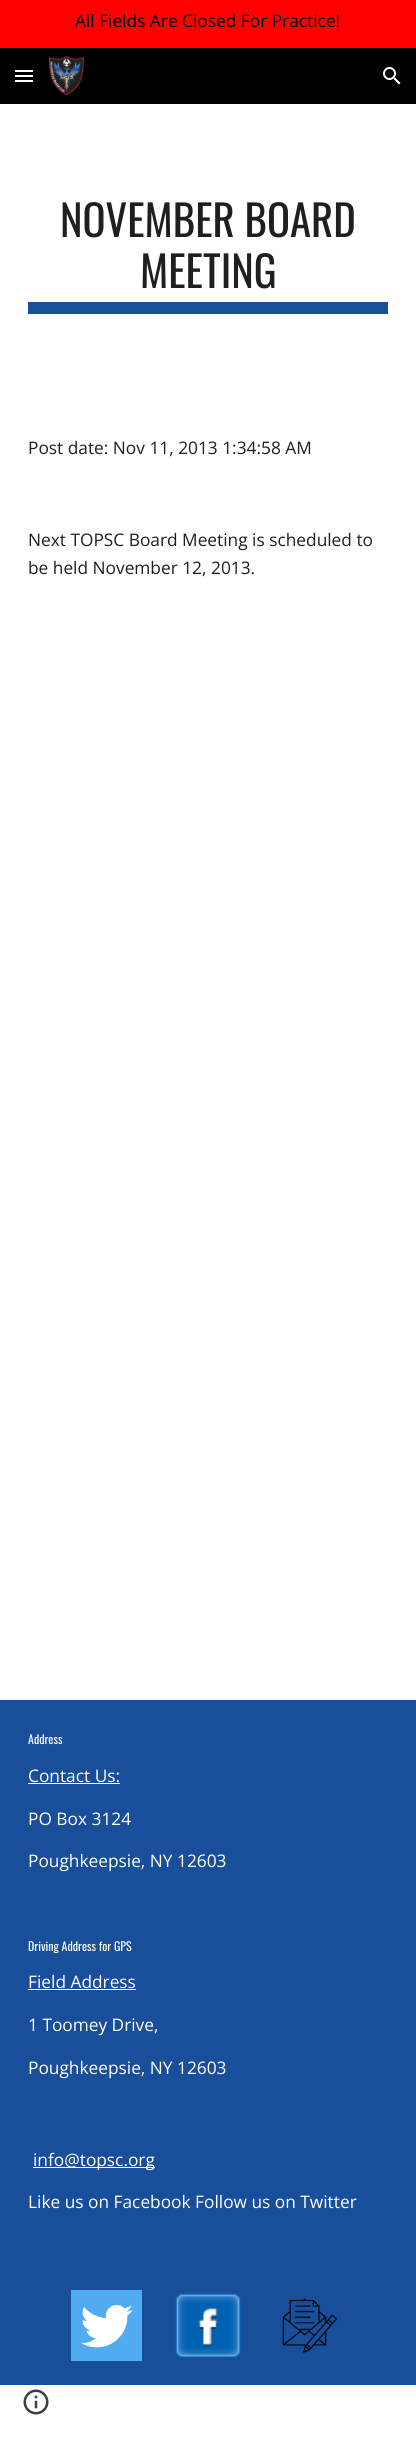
#include <cairo.h>
#include <math.h>
#include <stddef.h>

static cairo_t *c;
static void C(unsigned color){cairo_set_source_rgb(c, (color >> 16) / 255.0, (color >> 8 & 255) / 255.0, (color & 255) / 255.0);}
static void F(const char *family, double size, int italic, int bold){cairo_select_font_face(c, family, italic ? CAIRO_FONT_SLANT_ITALIC : CAIRO_FONT_SLANT_NORMAL,bold ? CAIRO_FONT_WEIGHT_BOLD : CAIRO_FONT_WEIGHT_NORMAL);cairo_set_font_size(c, size);}
static void T(double x, double y, const char *s){cairo_move_to(c, x, y);cairo_show_text(c, s);}
static void R(double x, double y, double w, double h){cairo_rectangle(c, x, y, w, h);cairo_fill(c);}
static void I(const char *path, double x, double y, double w, double h){cairo_surface_t *image = cairo_image_surface_create_from_png(path);cairo_save(c);cairo_set_source_surface(c, image, x, y);cairo_rectangle(c, x, y, w, h);cairo_fill(c);cairo_restore(c);cairo_surface_destroy(image);}
int main(void) {
cairo_surface_t *surface = cairo_image_surface_create(CAIRO_FORMAT_RGB24, 416, 2449);
c = cairo_create(surface);
cairo_font_options_t *options = cairo_font_options_create();
cairo_font_options_set_hint_metrics(options, CAIRO_HINT_METRICS_OFF);
cairo_font_options_set_hint_style(options, CAIRO_HINT_STYLE_NONE);
cairo_set_font_options(c, options);
cairo_set_miter_limit(c, 4);
C(0xffffff);
cairo_paint(c);
C(0xff0000);
R(0,0,416,48);
F("Open Sans",17.3,0,0);
C(0x000000);
T(75,27,"All Fields Are Closed For Practice!");
R(0,48,416,56);
I("1.png",49,56,36,40);
I("2.png",383,67,18,18);
C(0xffffff);
R(15,70,18,2);
R(15,75,18,2);
R(15,80,18,2);
F("Oswald",42.75,0,0);
C(0x1f1f1f);
T(60,237,"NOVEMBER BOARD");
T(140,288,"MEETING");
C(0x184e9a);
R(28,302,360,12);
F("Open Sans",17.3,0,0);
C(0x1f1f1f);
T(28,454,"Post date: Nov 11, 2013 1:34:58 AM");
T(28,546,"Next TOPSC Board Meeting is scheduled to");
T(28,574,"be held November 12, 2013.");
C(0x184e9a);
R(0,1700,416,685);
F("Oswald",12,0,0);
C(0xffffff);
T(28,1744,"Address");
F("Open Sans",17.3,0,0);
T(28,1782,"Contact Us:");
R(28,1783,92,1);
T(28,1825,"PO Box 3124");
T(28,1867,"Poughkeepsie, NY 12603");
F("Oswald",12,0,0);
T(28,1951,"Driving Address for GPS");
F("Open Sans",17.3,0,0);
T(28,1988,"Field Address");
R(28,1989,108,1);
T(28,2031,"1 Toomey Drive,");
T(28,2074,"Poughkeepsie, NY 12603");
R(33,2167,122,1);
T(33,2166,"info@topsc.org");
T(28,2208,"Like us on Facebook Follow us on Twitter");
I("3.png",71,2290,71,71);
I("4.png",175,2293,66,65);
I("5.png",282,2298,56,55);
I("6.png",23,2389,26,26);
cairo_surface_write_to_png(surface, "o.png");
cairo_font_options_destroy(options);
cairo_destroy(c);
cairo_surface_destroy(surface);
return 0;
}
